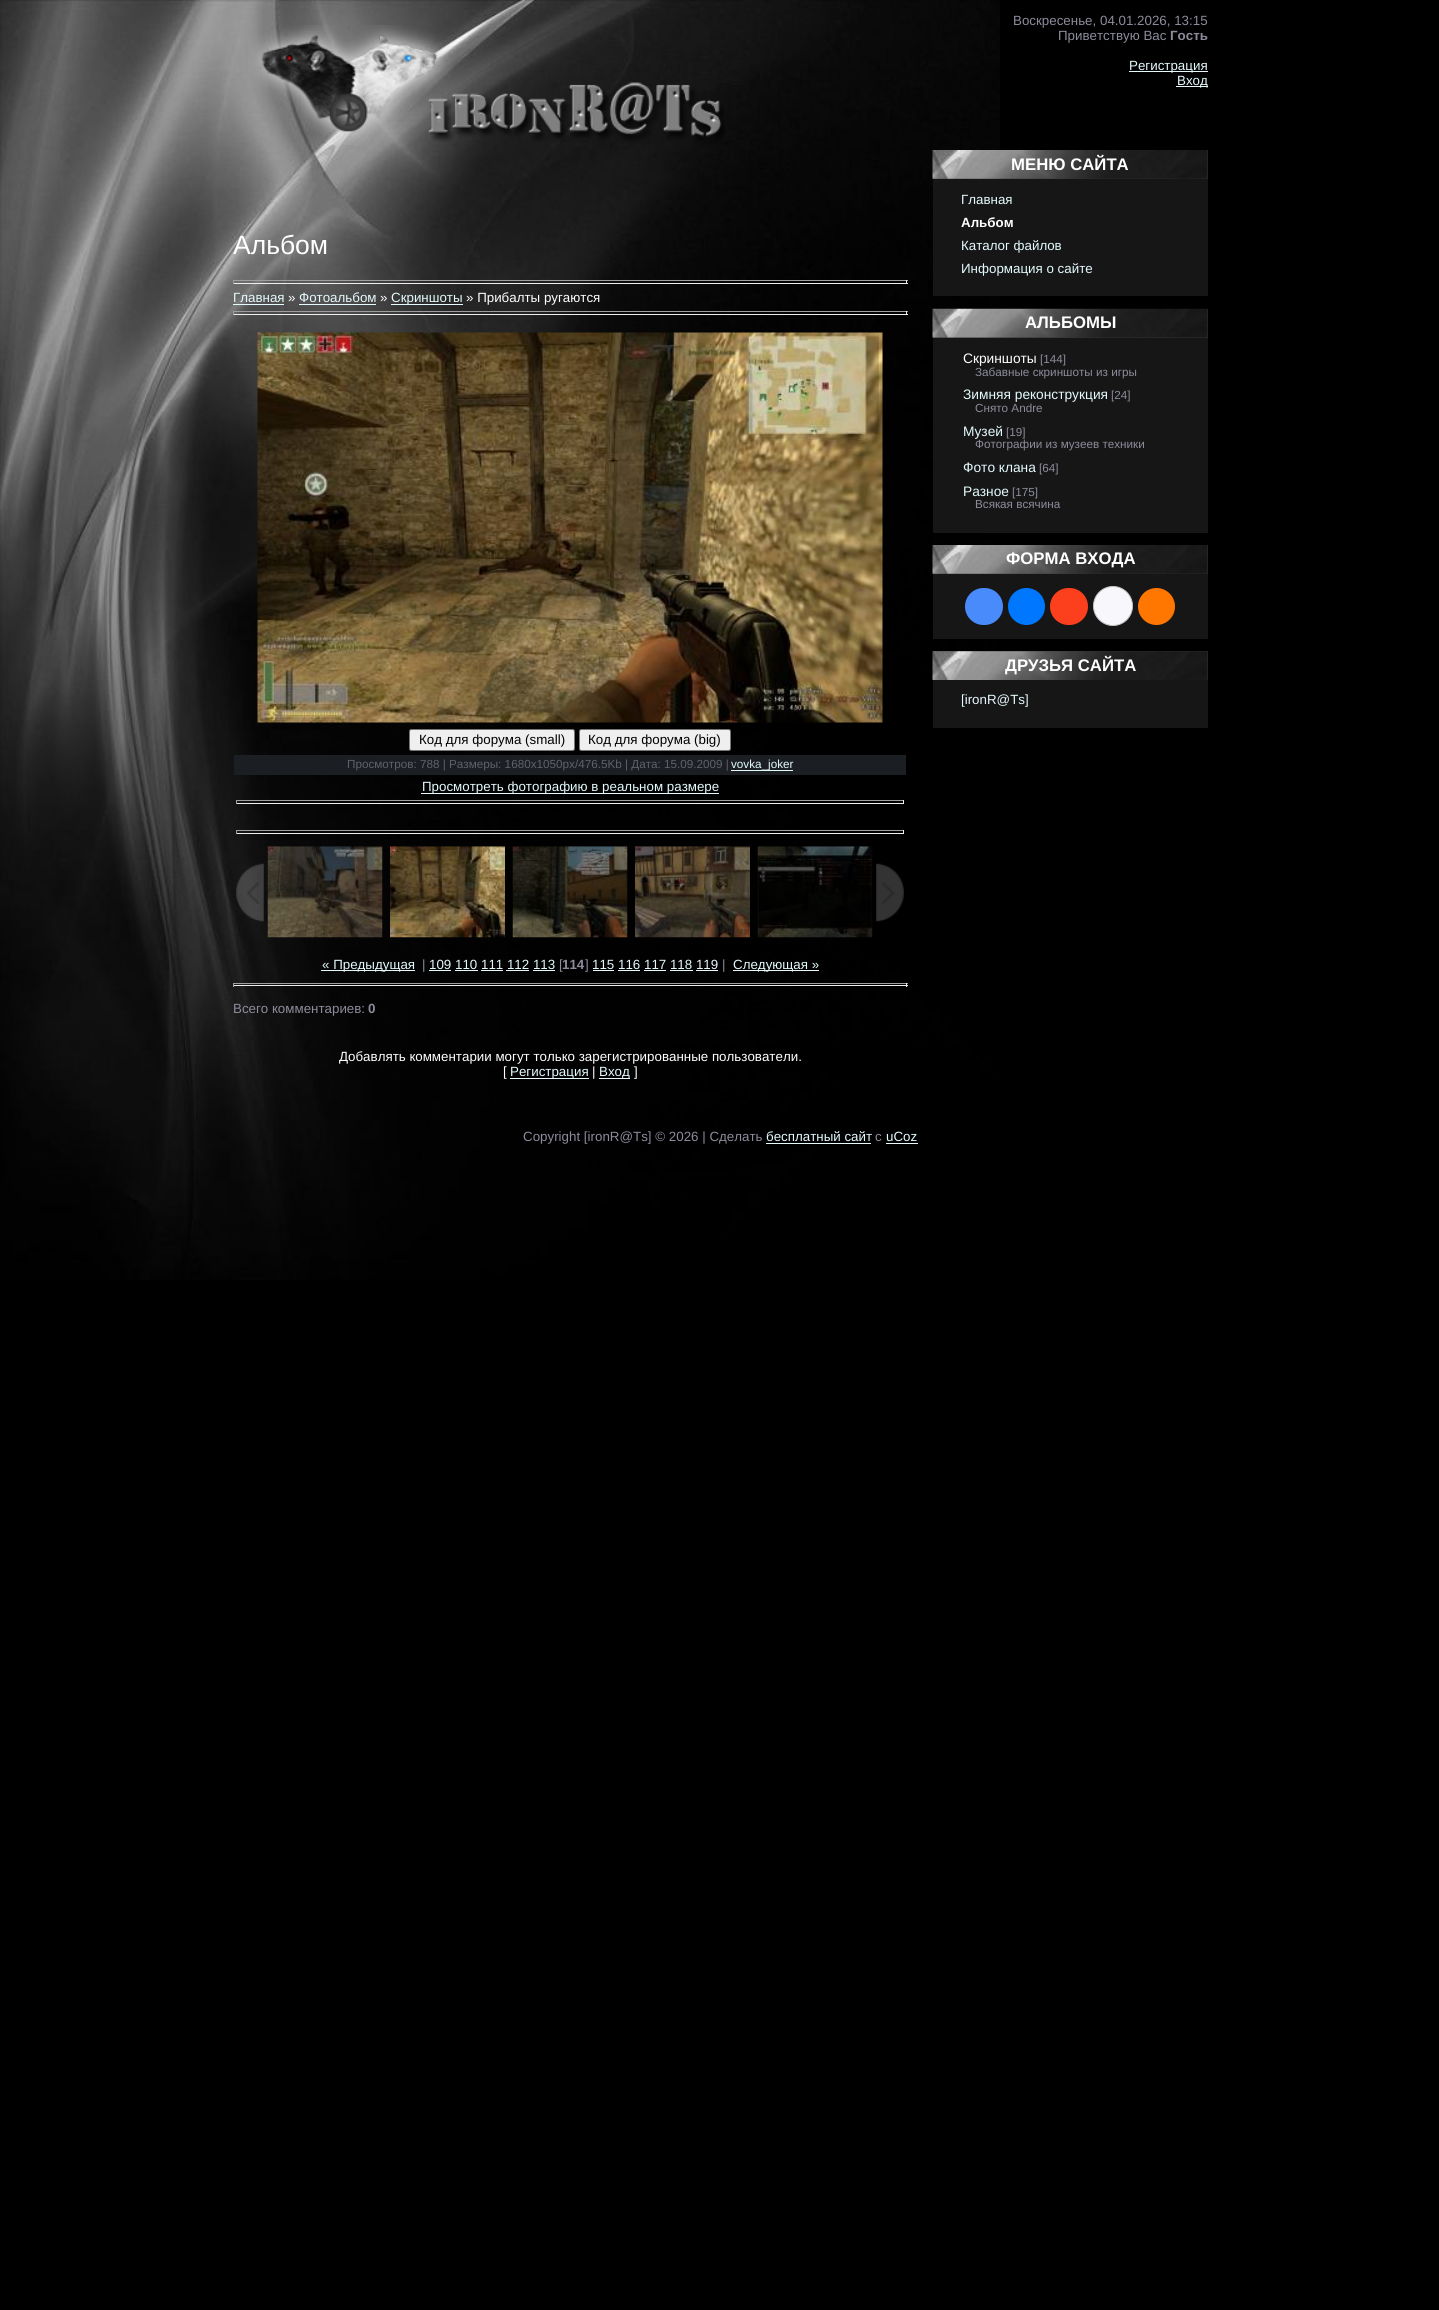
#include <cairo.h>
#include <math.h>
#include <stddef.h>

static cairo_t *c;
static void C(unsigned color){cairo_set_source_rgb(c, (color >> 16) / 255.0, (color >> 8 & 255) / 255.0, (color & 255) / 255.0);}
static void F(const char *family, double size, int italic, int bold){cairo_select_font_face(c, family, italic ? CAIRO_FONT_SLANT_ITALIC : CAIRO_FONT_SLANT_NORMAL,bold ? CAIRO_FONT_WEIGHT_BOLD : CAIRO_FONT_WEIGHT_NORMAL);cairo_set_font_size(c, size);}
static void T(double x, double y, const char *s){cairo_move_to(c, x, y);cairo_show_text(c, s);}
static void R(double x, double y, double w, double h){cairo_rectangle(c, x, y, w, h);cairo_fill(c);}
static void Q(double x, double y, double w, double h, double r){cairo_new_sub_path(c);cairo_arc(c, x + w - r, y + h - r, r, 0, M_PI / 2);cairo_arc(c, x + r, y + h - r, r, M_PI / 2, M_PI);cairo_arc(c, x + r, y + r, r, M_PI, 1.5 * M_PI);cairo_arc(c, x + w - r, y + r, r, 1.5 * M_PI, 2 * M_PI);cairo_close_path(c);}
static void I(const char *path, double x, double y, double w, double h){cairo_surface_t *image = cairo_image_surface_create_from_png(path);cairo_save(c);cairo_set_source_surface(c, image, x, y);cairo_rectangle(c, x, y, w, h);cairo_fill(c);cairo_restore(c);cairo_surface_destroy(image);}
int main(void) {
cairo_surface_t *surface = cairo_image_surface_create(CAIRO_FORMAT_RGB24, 1439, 2310);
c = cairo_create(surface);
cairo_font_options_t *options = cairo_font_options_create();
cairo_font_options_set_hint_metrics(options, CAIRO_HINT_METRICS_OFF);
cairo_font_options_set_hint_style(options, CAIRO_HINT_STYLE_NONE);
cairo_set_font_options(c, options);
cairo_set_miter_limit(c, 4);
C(0x000000);
cairo_paint(c);
I("1.png",0,0,1000,1280);
I("2.png",248,25,477,120);
F("Liberation Sans",13.35,0,0);
C(0x8c8c9c);
T(1013,25,"Воскресенье, 04.01.2026, 13:15");
T(1058,40,"Приветствую Вас");
F("Liberation Sans",13.35,0,1);
T(1170,40,"Гость");
C(0xe4fafd);
R(1129,71,79,1);
F("Liberation Sans",13.35,0,0);
T(1129,70,"Регистрация");
R(1176,86,32,1);
T(1177,85,"Вход");
F("Liberation Sans",26.5,0,0);
C(0xffffff);
T(233,254,"Альбом");
C(0x9f9f9f);
R(233,280,675,1);
C(0xeeeeee);
R(906,280,1,4);
R(233,283,675,1);
C(0x9f9f9f);
R(233,280,1,4);
F("Liberation Sans",13.35,0,0);
C(0xe4fafd);
T(233,302,"Главная");
R(233,304,51,1);
C(0xffffff);
T(288,302,"»");
C(0xe4fafd);
T(299,302,"Фотоальбом");
R(299,304,77,1);
C(0xffffff);
T(380,302,"»");
C(0xe4fafd);
R(391,304,72,1);
T(391,302,"Скриншоты");
C(0xffffff);
T(466,302,"» Прибалты ругаются");
C(0x9f9f9f);
R(233,311,675,1);
C(0xeeeeee);
R(906,311,1,4);
R(233,314,675,1);
C(0x9f9f9f);
R(233,311,1,4);
I("3.png",257,332,626,391);
C(0xefefef);
Q(409.5,729.5,165,21,2);
cairo_fill_preserve(c);
C(0x767676);
cairo_set_line_width(c,1);
cairo_stroke(c);
C(0x000000);
T(419,744,"Код для форума (small)");
C(0xefefef);
Q(579.5,729.5,151,21,2);
cairo_fill_preserve(c);
C(0x767676);
cairo_stroke(c);
C(0x000000);
T(588,744,"Код для форума (big)");
C(0x1b1f23);
R(234,755,672,20);
F("Liberation Sans",11.7,0,0);
C(0x60606b);
T(347,768,"Просмотров: 788 | Размеры: 1680x1050px/476.5Kb | Дата: 15.09.2009 |");
C(0xe4fafd);
R(731,770,62,1);
T(731,768,"vovka_joker");
R(421,793,298,1);
F("Liberation Sans",13.35,0,0);
T(422,791,"Просмотреть фотографию в реальном размере");
C(0x9f9f9f);
R(236,800,668,1);
C(0xeeeeee);
R(903,800,1,4);
R(236,803,668,1);
C(0x9f9f9f);
R(236,800,1,4);
R(236,830,668,1);
C(0xeeeeee);
R(903,830,1,4);
R(236,833,668,1);
C(0x9f9f9f);
R(236,830,1,4);
I("4.png",236,863,28,59);
I("5.png",267,846,116,92);
I("6.png",390,846,115,92);
I("7.png",512,846,116,92);
I("8.png",635,846,115,92);
I("9.png",757,846,116,92);
I("10.png",876,863,28,59);
C(0xe4fafd);
R(321,970,94,1);
T(322,969,"« Предыдущая");
C(0x8c8c9c);
T(422,969,"|");
C(0xe4fafd);
T(429,969,"109 110 111 112 113");
R(429,970,22,1);
C(0x8c8c9c);
T(559,969,"[");
F("Liberation Sans",13.35,0,1);
T(562,969,"114");
F("Liberation Sans",13.35,0,0);
T(585,969,"]");
C(0xe4fafd);
T(592,969,"115 116 117 118 119");
R(593,970,21,1);
C(0x8c8c9c);
T(722,969,"|");
C(0xe4fafd);
R(733,970,86,1);
T(733,969,"Следующая »");
R(455,970,23,1);
R(481,970,22,1);
R(506,970,23,1);
R(533,970,22,1);
R(618,970,22,1);
R(644,970,22,1);
R(670,970,23,1);
R(696,970,22,1);
C(0x9f9f9f);
R(233,983,675,1);
C(0xeeeeee);
R(906,983,1,4);
R(233,985,675,1);
C(0x9f9f9f);
R(233,983,1,4);
C(0x8c8c9c);
T(233,1013,"Всего комментариев:");
F("Liberation Sans",13.35,0,1);
T(368,1013,"0");
F("Liberation Sans",13.35,0,0);
C(0xffffff);
T(339,1061,"Добавлять комментарии могут только зарегистрированные пользователи.");
T(503,1076,"[");
C(0xe4fafd);
R(510,1078,79,1);
T(510,1076,"Регистрация");
C(0xffffff);
T(592,1076,"|");
C(0xe4fafd);
R(599,1078,31,1);
T(599,1076,"Вход");
C(0xffffff);
T(634,1076,"]");
C(0x333333);
R(933,150,275,29);
I("11.png",932,150,276,29);
F("Liberation Sans",16.75,0,1);
C(0xffffff);
T(1011,170,"МЕНЮ САЙТА");
C(0x161616);
R(933,179,275,117);
F("Liberation Sans",13.35,0,0);
C(0xe4fafd);
T(961,204,"Главная");
F("Liberation Sans",13.35,0,1);
C(0xffffff);
T(961,227,"Альбом");
F("Liberation Sans",13.35,0,0);
C(0xe4fafd);
T(961,250,"Каталог файлов");
T(961,273,"Информация о сайте");
C(0x333333);
R(933,309,275,29);
I("12.png",932,308,276,30);
F("Liberation Sans",16.75,0,1);
C(0xffffff);
T(1025,328,"АЛЬБОМЫ");
C(0x161616);
R(933,338,275,195);
F("Liberation Sans",13.75,0,0);
C(0xffffff);
T(963,363,"Скриншоты");
F("Liberation Sans",11.7,0,0);
C(0x8c8c9c);
T(1040,363,"[144]");
T(975,376,"Забавные скриншоты из игры");
F("Liberation Sans",13.75,0,0);
C(0xe4fafd);
T(963,399,"Зимняя реконструкция");
F("Liberation Sans",11.7,0,0);
C(0x8c8c9c);
T(1111,399,"[24]");
T(975,412,"Снято Andre");
F("Liberation Sans",13.75,0,0);
C(0xe4fafd);
T(963,436,"Музей");
F("Liberation Sans",11.7,0,0);
C(0x8c8c9c);
T(1006,436,"[19]");
T(975,448,"Фотографии из музеев техники");
F("Liberation Sans",13.75,0,0);
C(0xe4fafd);
T(963,472,"Фото клана");
F("Liberation Sans",11.7,0,0);
C(0x8c8c9c);
T(1039,472,"[64]");
F("Liberation Sans",13.75,0,0);
C(0xe4fafd);
T(963,496,"Разное");
F("Liberation Sans",11.7,0,0);
C(0x8c8c9c);
T(1012,496,"[175]");
T(975,508,"Всякая всячина");
C(0x333333);
R(933,545,275,29);
I("13.png",932,545,276,29);
F("Liberation Sans",16.75,0,1);
C(0xffffff);
T(1006,564,"ФОРМА ВХОДА");
C(0x161616);
R(933,574,275,65);
C(0x498bfa);
Q(965,588,38,37,18.5);
cairo_fill(c);
C(0x0077ff);
cairo_arc(c,1026.5,606.5,18.5,0,2 * M_PI);
cairo_fill(c);
C(0xfc3f1d);
Q(1050,588,38,37,18.5);
cairo_fill(c);
C(0xf8f8fc);
cairo_arc(c,1113,606,19.5,0,2 * M_PI);
cairo_fill_preserve(c);
C(0xc4c4c4);
cairo_stroke(c);
C(0xff7700);
cairo_arc(c,1156.5,606.5,18.5,0,2 * M_PI);
cairo_fill(c);
C(0x333333);
R(933,651,275,29);
I("14.png",932,651,276,29);
C(0xffffff);
T(1005,671,"ДРУЗЬЯ САЙТА");
C(0x161616);
R(933,680,275,48);
F("Liberation Sans",13.35,0,0);
C(0xe4fafd);
T(961,704,"[ironR@Ts]");
C(0x8c8c9c);
T(523,1141,"Copyright [ironR@Ts] © 2026 | Сделать");
C(0xe4fafd);
T(766,1141,"бесплатный сайт");
R(766,1143,105,1);
C(0x8c8c9c);
T(875,1141,"с");
C(0xe4fafd);
T(886,1141,"uCoz");
R(886,1143,32,1);
cairo_surface_write_to_png(surface, "o.png");
cairo_font_options_destroy(options);
cairo_destroy(c);
cairo_surface_destroy(surface);
return 0;
}
